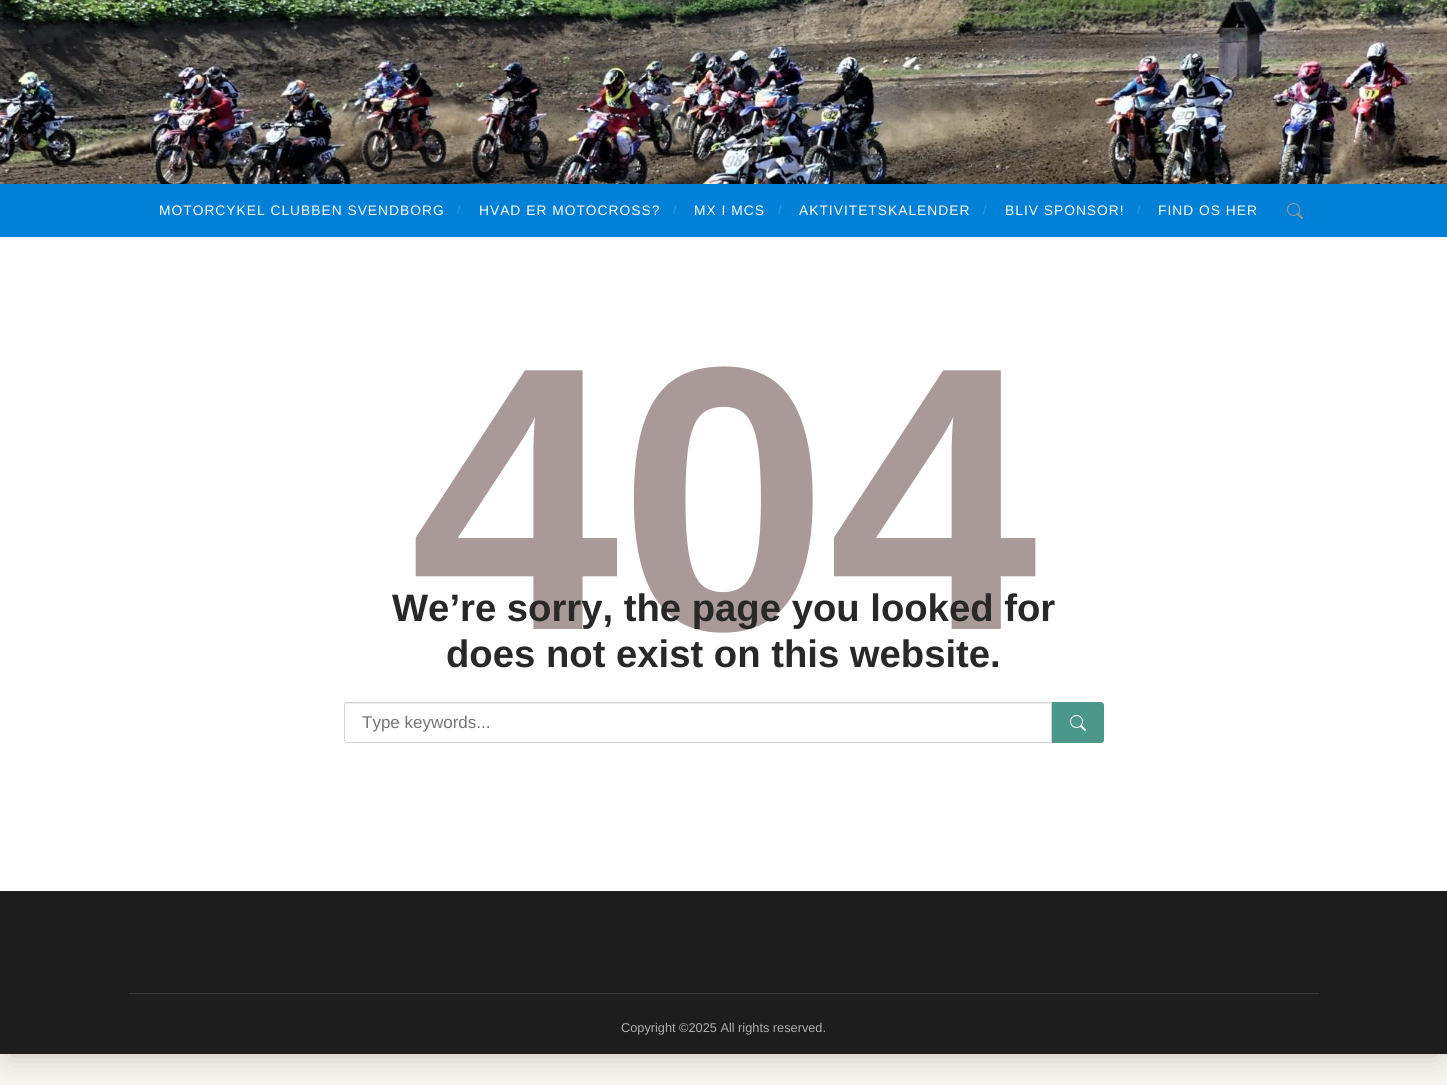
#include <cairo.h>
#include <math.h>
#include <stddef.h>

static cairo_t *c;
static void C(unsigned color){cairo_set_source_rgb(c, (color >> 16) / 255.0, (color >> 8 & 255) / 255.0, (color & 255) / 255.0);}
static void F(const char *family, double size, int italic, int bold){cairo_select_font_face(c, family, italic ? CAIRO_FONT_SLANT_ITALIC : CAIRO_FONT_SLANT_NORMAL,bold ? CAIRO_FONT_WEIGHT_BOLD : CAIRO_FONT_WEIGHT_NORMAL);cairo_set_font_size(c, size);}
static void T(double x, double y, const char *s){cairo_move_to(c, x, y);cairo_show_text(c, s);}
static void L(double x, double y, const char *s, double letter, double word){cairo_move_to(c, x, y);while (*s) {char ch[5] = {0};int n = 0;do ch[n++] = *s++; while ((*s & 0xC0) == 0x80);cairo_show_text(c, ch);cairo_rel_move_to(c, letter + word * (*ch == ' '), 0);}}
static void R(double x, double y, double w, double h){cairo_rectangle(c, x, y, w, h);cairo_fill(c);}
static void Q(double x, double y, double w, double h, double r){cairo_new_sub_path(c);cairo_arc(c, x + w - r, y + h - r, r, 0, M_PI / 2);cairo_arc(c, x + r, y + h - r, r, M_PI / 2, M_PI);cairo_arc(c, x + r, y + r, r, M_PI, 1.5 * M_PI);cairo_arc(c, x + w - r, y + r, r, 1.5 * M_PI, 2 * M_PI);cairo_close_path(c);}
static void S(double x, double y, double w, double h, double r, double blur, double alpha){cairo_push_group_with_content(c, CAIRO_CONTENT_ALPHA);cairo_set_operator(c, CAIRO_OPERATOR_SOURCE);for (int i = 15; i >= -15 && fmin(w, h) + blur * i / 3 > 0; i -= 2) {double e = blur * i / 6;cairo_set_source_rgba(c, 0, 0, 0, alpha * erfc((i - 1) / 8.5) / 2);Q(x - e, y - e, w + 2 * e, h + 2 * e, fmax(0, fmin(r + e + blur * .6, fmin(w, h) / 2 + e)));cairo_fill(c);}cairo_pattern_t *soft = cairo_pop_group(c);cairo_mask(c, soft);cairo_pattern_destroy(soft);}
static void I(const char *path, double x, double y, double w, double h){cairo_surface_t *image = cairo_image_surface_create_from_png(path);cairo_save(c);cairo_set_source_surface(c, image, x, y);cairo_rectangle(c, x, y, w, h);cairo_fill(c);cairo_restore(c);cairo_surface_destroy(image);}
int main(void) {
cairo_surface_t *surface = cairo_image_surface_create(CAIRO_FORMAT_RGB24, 1447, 1085);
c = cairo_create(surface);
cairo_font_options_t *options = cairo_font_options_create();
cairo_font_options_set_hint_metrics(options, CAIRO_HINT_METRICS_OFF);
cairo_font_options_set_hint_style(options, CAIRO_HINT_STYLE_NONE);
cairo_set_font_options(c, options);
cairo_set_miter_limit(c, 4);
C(0xf6f2ee);
cairo_paint(c);
C(0x000000);
S(11,19,1425,1033,0,13.5,.27);
C(0xffffff);
R(0,237,1447,654);
I("1.png",0,0,1447,184);
C(0x0080d6);
R(0,184,1447,53);
F("Liberation Sans",13.8,0,0);
C(0xffffff);
L(159,215,"MOTORCYKEL CLUBBEN SVENDBORG",1,0);
F("Liberation Sans",12.75,0,0);
C(0x3399de);
T(457,214,"/");
F("Liberation Sans",13.8,0,0);
C(0xffffff);
L(479,215,"HVAD ER MOTOCROSS?",1,0);
F("Liberation Sans",12.75,0,0);
C(0x3399de);
T(673,214,"/");
F("Liberation Sans",13.8,0,0);
C(0xffffff);
L(694,215,"MX I MCS",1,0);
F("Liberation Sans",12.75,0,0);
C(0x3399de);
T(778,214,"/");
F("Liberation Sans",13.8,0,0);
C(0xffffff);
L(799,215,"AKTIVITETSKALENDER",1,0);
F("Liberation Sans",12.75,0,0);
C(0x3399de);
T(983,214,"/");
F("Liberation Sans",13.8,0,0);
C(0xffffff);
L(1005,215,"BLIV SPONSOR!",1,0);
F("Liberation Sans",12.75,0,0);
C(0x3399de);
T(1137,214,"/");
F("Liberation Sans",13.8,0,0);
C(0xffffff);
L(1158,215,"FIND OS HER",1,0);
I("2.png",1287,203,16,16);
F("Liberation Sans",376,0,1);
C(0xa99a99);
T(410,629,"404");
F("Liberation Sans",38.25,0,1);
C(0x282828);
T(392,621,"We’re sorry, the page you looked for");
T(446,667,"does not exist on this website.");
C(0xececec);
cairo_new_path(c);
cairo_move_to(c,347,704);
cairo_line_to(c,1051,704);
cairo_line_to(c,1051,703);
cairo_line_to(c,347,703);
cairo_curve_to(c,345,703,345,705,345,706);
cairo_curve_to(c,345,705,346,704,347,704);
cairo_close_path(c);
cairo_fill(c);
cairo_new_path(c);
cairo_move_to(c,347,702.5);
cairo_line_to(c,1051.5,702.5);
cairo_line_to(c,1051.5,742.5);
cairo_line_to(c,347,742.5);
cairo_curve_to(c,345.5,742.5,344.5,741.5,344.5,740);
cairo_line_to(c,344.5,705);
cairo_curve_to(c,344.5,703.5,345.5,702.5,347,702.5);
cairo_close_path(c);
C(0xced4da);
cairo_set_line_width(c,1);
cairo_stroke(c);
F("Liberation Sans",17,0,0);
C(0x757575);
T(362,728,"Type keywords...");
C(0x4b9789);
cairo_new_path(c);
cairo_move_to(c,1052,702);
cairo_line_to(c,1101,702);
cairo_curve_to(c,1102.5,702,1104,703.5,1104,705);
cairo_line_to(c,1104,740);
cairo_curve_to(c,1104,741.5,1102.5,743,1101,743);
cairo_line_to(c,1052,743);
cairo_close_path(c);
cairo_fill(c);
I("3.png",1070,715,16,16);
C(0x1d1d1d);
R(0,891,1447,163);
C(0x373737);
R(129,993,1190,1);
F("Liberation Sans",12.75,0,0);
C(0xadadad);
T(621,1032,"Copyright ©2025 All rights reserved.");
cairo_surface_write_to_png(surface, "o.png");
cairo_font_options_destroy(options);
cairo_destroy(c);
cairo_surface_destroy(surface);
return 0;
}
